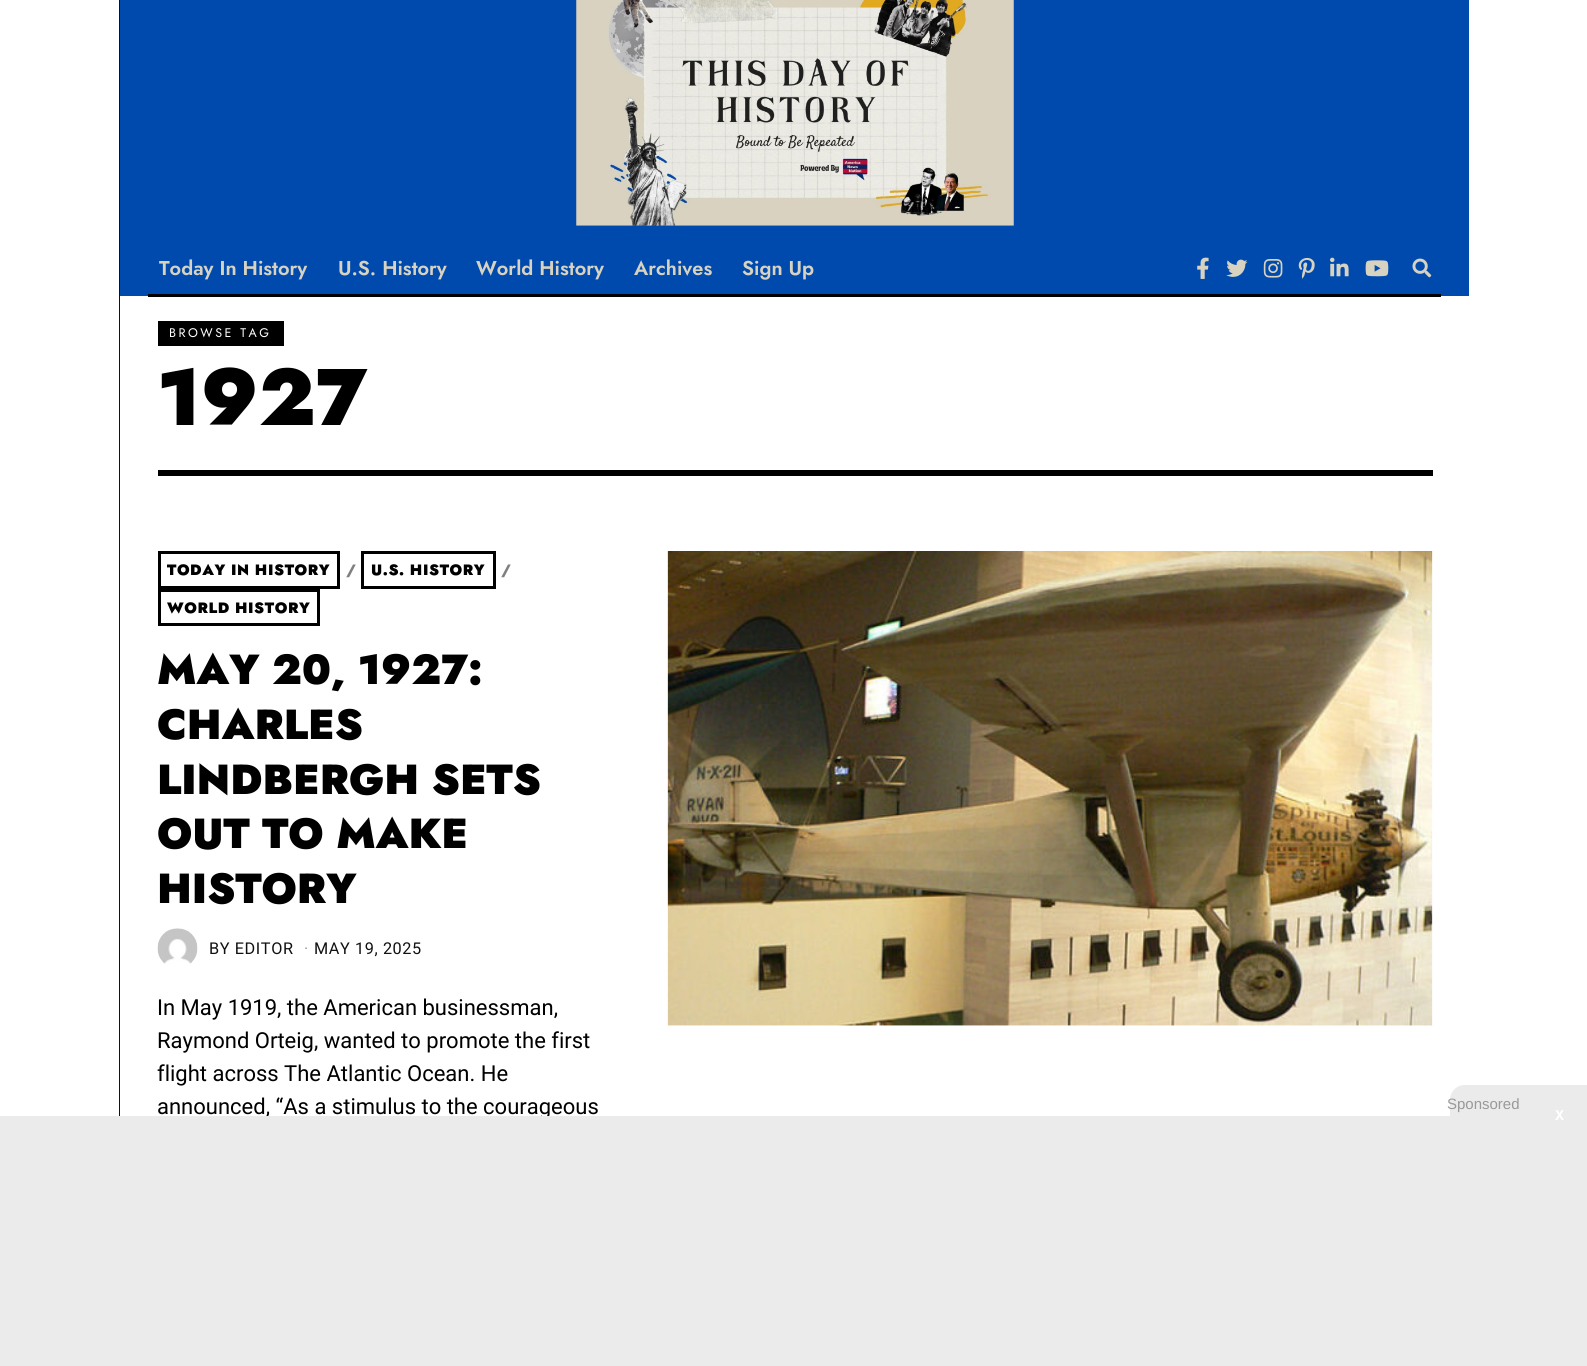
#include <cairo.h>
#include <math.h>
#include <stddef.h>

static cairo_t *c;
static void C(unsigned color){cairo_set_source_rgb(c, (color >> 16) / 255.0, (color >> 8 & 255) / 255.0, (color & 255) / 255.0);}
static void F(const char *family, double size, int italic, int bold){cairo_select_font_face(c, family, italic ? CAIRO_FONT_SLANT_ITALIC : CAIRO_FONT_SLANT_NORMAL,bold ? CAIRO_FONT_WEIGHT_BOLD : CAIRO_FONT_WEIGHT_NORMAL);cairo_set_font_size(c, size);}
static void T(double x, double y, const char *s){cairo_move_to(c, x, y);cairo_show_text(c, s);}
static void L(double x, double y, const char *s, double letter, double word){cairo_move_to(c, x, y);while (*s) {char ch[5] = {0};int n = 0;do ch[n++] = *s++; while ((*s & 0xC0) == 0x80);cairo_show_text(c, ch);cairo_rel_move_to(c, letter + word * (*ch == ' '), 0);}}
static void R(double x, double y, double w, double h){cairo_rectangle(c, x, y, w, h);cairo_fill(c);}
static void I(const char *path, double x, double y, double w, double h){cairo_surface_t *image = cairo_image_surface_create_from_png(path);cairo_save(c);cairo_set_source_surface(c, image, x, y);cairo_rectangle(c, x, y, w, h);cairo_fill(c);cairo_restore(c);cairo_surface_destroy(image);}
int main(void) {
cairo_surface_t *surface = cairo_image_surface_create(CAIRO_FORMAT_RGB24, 1587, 1366);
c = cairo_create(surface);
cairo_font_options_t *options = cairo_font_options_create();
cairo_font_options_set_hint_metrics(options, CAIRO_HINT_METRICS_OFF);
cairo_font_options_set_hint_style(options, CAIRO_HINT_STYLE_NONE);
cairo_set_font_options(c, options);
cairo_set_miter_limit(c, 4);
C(0xffffff);
cairo_paint(c);
C(0x111111);
R(119,0,1,1116);
C(0x004aad);
R(120,0,1349,296);
I("1.png",576,0,438,226);
C(0x000000);
R(148,294,1293,3);
F("Jost SemiBold",20,0,0);
C(0xd8d3c1);
T(159,275,"Today In History");
T(338,275,"U.S. History");
T(476,275,"World History");
T(634,275,"Archives");
T(742,275,"Sign Up");
I("2.png",1197,257,12,22);
I("3.png",1226,259,22,18);
I("4.png",1263,259,20,19);
I("5.png",1298,257,17,22);
I("6.png",1330,257,19,20);
I("7.png",1365,260,24,17);
I("8.png",1412,258,20,20);
C(0x000000);
R(158,470,1275,6);
R(158,321,126,25);
F("Jost",12.5,0,0);
C(0xffffff);
L(169,337,"BROWSE TAG",2.5,0);
F("Jost Black",80,0,0);
C(0x000000);
T(157,425,"1927");
cairo_rectangle(c,159.5,552.5,179,35);
cairo_set_line_width(c,3);
cairo_stroke(c);
F("Jost Black",15,0,0);
L(167,575,"TODAY IN HISTORY",.6,0);
C(0x808080);
L(346,575,"/",.6,0);
cairo_rectangle(c,362.5,552.5,132,35);
C(0x000000);
cairo_stroke(c);
L(371,575,"U.S. HISTORY",.6,0);
C(0x808080);
L(501,575,"/",.6,0);
cairo_rectangle(c,159.5,590.5,159,34);
C(0x000000);
cairo_stroke(c);
L(167,613,"WORLD HISTORY",.6,0);
F("Jost Black",42,0,0);
T(157,684,"MAY 20, 1927:");
T(157,739,"CHARLES");
T(157,794,"LINDBERGH SETS");
T(157,848,"OUT TO MAKE");
T(157,903,"HISTORY");
I("9.png",157,928,41,36);
F("Roboto",16.25,0,0);
C(0x111111);
L(209,954,"BY EDITOR",.6,0);
C(0xa0a0a0);
L(304,954,"·",.6,0);
C(0x111111);
L(314,954,"MAY 19, 2025",.6,0);
F("Roboto",22,0,0);
C(0x000000);
T(157,1015,"In May 1919, the American businessman,");
T(157,1048,"Raymond Orteig, wanted to promote the first");
T(157,1081,"flight across The Atlantic Ocean. He");
T(157,1114,"announced, “As a stimulus to the courageous");
I("10.png",667,551,766,475);
C(0xebebec);
R(0,1116,1587,250);
cairo_new_path(c);
cairo_move_to(c,1465,1085);
cairo_line_to(c,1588,1085);
cairo_line_to(c,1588,1123);
cairo_line_to(c,1450,1123);
cairo_line_to(c,1450,1100);
cairo_curve_to(c,1450,1091.5,1456.5,1085,1465,1085);
cairo_close_path(c);
cairo_fill(c);
F("Liberation Sans",15,0,0);
C(0x999999);
T(1447,1109,"Sponsored");
F("Jost SemiBold",14,0,0);
C(0xffffff);
T(1555,1120,"X");
cairo_surface_write_to_png(surface, "o.png");
cairo_font_options_destroy(options);
cairo_destroy(c);
cairo_surface_destroy(surface);
return 0;
}
